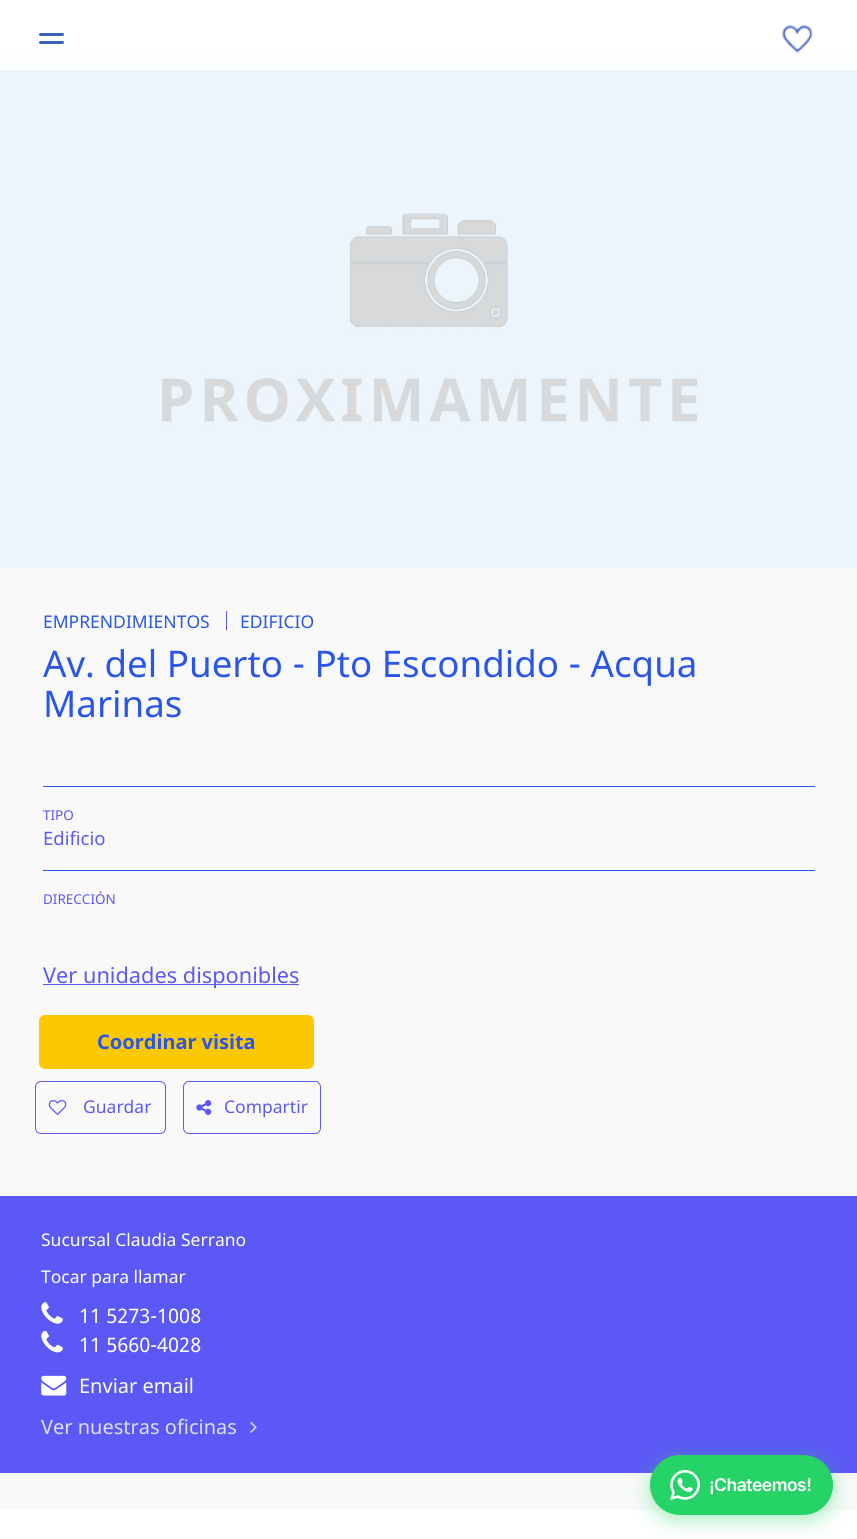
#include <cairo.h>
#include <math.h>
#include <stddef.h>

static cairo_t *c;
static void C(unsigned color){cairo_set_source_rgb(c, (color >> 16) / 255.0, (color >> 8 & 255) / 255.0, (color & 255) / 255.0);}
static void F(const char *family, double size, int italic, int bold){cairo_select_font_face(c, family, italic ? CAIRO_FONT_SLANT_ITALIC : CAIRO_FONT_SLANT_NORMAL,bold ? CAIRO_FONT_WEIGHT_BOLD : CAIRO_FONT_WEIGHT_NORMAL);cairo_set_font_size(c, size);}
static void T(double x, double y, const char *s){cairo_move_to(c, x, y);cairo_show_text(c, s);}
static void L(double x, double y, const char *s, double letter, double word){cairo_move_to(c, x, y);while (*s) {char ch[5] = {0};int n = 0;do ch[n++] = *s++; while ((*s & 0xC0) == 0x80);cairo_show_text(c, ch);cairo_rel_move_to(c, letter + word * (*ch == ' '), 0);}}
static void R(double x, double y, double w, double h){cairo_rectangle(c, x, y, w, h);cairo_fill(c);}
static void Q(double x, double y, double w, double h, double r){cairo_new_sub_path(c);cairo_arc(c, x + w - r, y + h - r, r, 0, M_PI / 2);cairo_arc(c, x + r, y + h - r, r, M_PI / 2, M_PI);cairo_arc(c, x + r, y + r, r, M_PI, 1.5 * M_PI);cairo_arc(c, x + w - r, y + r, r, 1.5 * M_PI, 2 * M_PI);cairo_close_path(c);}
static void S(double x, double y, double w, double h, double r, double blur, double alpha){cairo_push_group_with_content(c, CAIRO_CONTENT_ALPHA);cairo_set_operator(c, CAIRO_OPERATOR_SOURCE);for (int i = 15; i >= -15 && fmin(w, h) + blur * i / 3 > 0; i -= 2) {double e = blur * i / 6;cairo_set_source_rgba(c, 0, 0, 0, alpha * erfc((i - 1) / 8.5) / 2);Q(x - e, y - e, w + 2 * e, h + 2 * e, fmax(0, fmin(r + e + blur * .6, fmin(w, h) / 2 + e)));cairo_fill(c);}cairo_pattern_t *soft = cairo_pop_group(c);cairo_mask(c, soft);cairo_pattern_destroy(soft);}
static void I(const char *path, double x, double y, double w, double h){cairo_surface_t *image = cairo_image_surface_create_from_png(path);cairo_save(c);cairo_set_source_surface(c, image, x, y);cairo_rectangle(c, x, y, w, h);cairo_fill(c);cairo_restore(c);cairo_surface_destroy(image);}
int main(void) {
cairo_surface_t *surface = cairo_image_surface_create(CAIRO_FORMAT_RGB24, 857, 1539);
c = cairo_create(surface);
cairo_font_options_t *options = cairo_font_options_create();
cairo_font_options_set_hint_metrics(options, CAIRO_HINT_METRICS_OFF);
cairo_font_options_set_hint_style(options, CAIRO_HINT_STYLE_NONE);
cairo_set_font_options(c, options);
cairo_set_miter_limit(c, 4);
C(0xffffff);
cairo_paint(c);
C(0xf9f9f9);
R(0,568,857,942);
I("2.png",0,50,857,519);
cairo_set_source_rgba(c,1,1,1,0.9);
R(0,50,857,20);
C(0x3b60bd);
Q(39,33,25,3,1.5);
cairo_fill(c);
Q(39,41,25,3,1.5);
cairo_fill(c);
I("1.png",782,25,31,28);
F("Noto Sans",17.5,0,0);
C(0x2956e8);
T(43,628,"EMPRENDIMIENTOS");
C(0x5c58f6);
R(226,611,1,19);
C(0x2956e8);
T(240,628,"EDIFICIO");
F("Noto Sans",36.7,0,0);
T(43,677,"Av. del Puerto - Pto Escondido - Acqua");
T(43,717,"Marinas");
R(43,786,772,1);
R(43,870,772,1);
F("Noto Sans",13.5,0,0);
C(0x5c58f6);
T(43,820,"TIPO");
F("Noto Sans",18.5,0,0);
T(43,845,"Edificio");
F("Noto Sans",13.5,0,0);
T(43,904,"DIRECCIÓN");
R(43,984,256,1);
F("Noto Sans",21.75,0,0);
T(43,983,"Ver unidades disponibles");
C(0xfbc902);
Q(39,1015,275,54,6);
cairo_fill(c);
F("Noto Sans",20,0,1);
C(0x2956e8);
T(97,1049,"Coordinar visita");
Q(35.5,1081.5,130,52,5.5);
C(0x5c58f6);
cairo_set_line_width(c,1);
cairo_stroke(c);
I("3.png",48,1100,19,15);
F("Noto Sans",17.5,0,0);
T(83,1113,"Guardar");
Q(183.5,1081.5,137,52,5.5);
cairo_stroke(c);
I("4.png",196,1100,16,15);
T(224,1113,"Compartir");
R(0,1196,857,277);
C(0xffffff);
T(41,1246,"Sucursal Claudia Serrano");
T(41,1283,"Tocar para llamar");
I("5.png",41,1302,22,22);
F("Noto Sans",20,0,0);
T(79,1323,"11 5273-1008");
I("6.png",41,1330,22,23);
T(79,1352,"11 5660-4028");
I("7.png",41,1375,26,21);
T(79,1393,"Enviar email");
C(0xdedefd);
T(41,1434,"Ver nuestras oficinas");
I("8.png",250,1421,7,12);
C(0x25d366);
S(650,1460,183,60,30,10,.4);
C(0x25d366);
Q(650,1455,183,60,30);
cairo_fill(c);
I("9.png",670,1470,30,30);
F("Inter SemiBold",17.5,0,0);
C(0xffffff);
L(709,1491,"¡Chateemos!",-.5,0);
cairo_surface_write_to_png(surface, "o.png");
cairo_font_options_destroy(options);
cairo_destroy(c);
cairo_surface_destroy(surface);
return 0;
}
